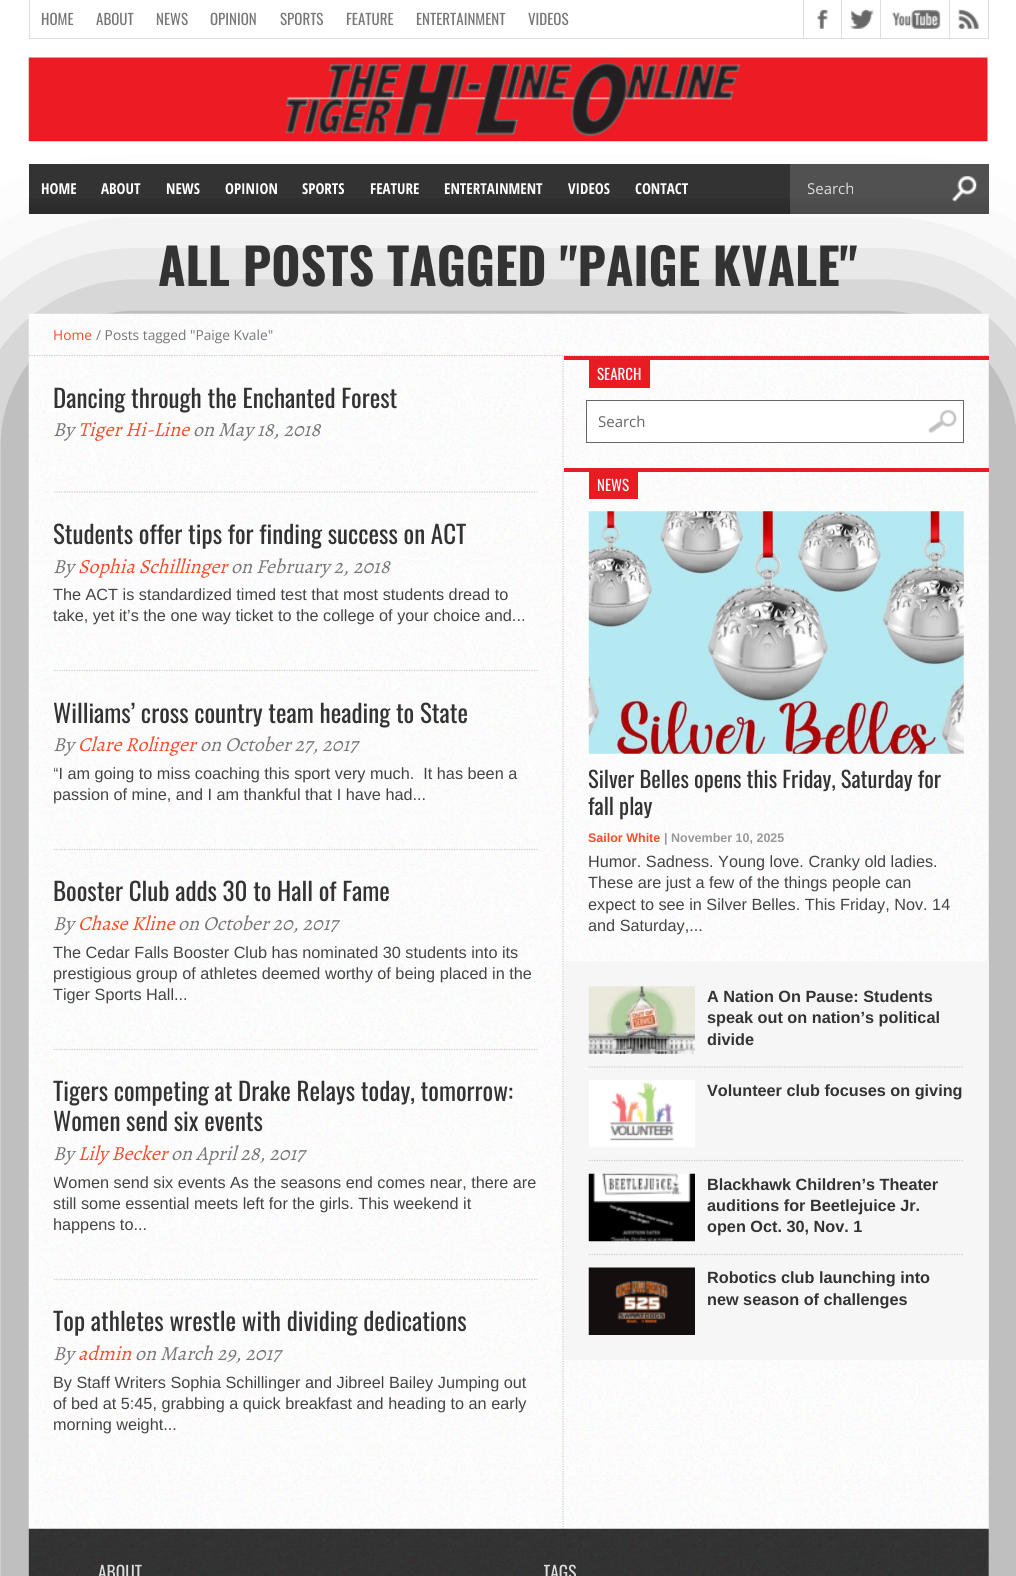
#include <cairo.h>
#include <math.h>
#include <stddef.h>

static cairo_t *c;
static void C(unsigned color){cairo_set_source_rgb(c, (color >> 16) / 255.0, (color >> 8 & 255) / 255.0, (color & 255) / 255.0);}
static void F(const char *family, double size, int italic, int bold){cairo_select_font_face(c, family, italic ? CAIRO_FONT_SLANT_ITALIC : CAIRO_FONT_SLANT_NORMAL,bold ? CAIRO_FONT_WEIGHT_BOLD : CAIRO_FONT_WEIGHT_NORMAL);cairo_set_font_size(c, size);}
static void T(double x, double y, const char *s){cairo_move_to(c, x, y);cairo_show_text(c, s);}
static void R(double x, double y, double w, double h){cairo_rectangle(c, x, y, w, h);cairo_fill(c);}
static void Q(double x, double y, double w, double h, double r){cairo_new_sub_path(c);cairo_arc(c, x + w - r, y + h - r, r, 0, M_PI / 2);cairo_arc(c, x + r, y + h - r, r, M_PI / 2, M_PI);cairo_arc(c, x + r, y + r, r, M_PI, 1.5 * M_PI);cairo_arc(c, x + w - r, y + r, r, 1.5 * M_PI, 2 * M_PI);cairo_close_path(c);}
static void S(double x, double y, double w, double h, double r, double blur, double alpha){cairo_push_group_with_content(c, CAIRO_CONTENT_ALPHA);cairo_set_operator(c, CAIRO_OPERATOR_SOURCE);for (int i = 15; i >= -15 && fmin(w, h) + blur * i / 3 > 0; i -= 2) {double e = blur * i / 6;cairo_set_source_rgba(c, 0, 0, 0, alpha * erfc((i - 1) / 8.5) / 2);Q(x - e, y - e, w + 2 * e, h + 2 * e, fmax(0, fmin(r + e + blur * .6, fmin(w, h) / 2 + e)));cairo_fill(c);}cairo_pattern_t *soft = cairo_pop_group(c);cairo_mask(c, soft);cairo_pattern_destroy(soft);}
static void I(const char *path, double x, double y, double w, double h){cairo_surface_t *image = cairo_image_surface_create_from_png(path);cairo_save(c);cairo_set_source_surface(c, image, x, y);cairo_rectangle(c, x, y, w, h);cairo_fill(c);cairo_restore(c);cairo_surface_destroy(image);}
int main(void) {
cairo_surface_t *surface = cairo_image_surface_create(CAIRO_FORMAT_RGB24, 1016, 1576);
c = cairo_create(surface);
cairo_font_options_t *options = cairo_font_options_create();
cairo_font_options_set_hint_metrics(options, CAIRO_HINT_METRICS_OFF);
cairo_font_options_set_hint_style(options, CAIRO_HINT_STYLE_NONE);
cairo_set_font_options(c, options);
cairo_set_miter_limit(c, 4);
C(0xffffff);
cairo_paint(c);
C(0xdddddd);
R(988,0,1,39);
R(29,38,960,1);
R(29,0,1,39);
F("Oswald",15,0,0);
C(0x777777);
T(41,25,"HOME");
T(96,25,"ABOUT");
T(156,25,"NEWS");
T(210,25,"OPINION");
T(280,25,"SPORTS");
T(346,25,"FEATURE");
T(416,25,"ENTERTAINMENT");
T(528,25,"VIDEOS");
C(0xdddddd);
R(803,0,1,38);
I("1.png",817,9,11,20);
R(841,0,1,38);
I("2.png",850,9,24,20);
R(880,0,1,38);
I("3.png",892,9,49,20);
R(949,0,1,38);
I("4.png",958,9,21,20);
I("5.png",28,57,960,85);
C(0x000000);
S(79,389,860,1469,0,94,1);
C(0x333333);
R(29,164,960,50);
I("6.png",28,198,961,16);
F("Open Sans Condensed",15,0,1);
C(0xffffff);
T(41,194,"HOME");
T(101,194,"ABOUT");
T(166,194,"NEWS");
T(225,194,"OPINION");
T(302,194,"SPORTS");
T(370,194,"FEATURE");
T(444,194,"ENTERTAINMENT");
T(568,194,"VIDEOS");
T(635,194,"CONTACT");
cairo_set_source_rgba(c,1,1,1,0.15);
R(790,164,199,50);
I("7.png",952,176,25,26);
cairo_save(c);
cairo_rectangle(c,808,179,151,21);
cairo_clip(c);
F("Open Sans",15,0,0);
C(0xdddddd);
T(807,194,"Search");
cairo_restore(c);
F("Oswald",50,0,1);
C(0x333333);
T(158,286,"ALL POSTS TAGGED \"PAIGE KVALE\"");
I("8.png",28,313,961,1263);
cairo_new_path(c);
cairo_move_to(c,29,355.5);
cairo_line_to(c,989,355.5);
C(0xcccccc);
cairo_set_line_width(c,1.2);
cairo_set_dash(c,(double[]){1.25,1.25},2,0);
cairo_stroke(c);
F("Open Sans",13.75,0,0);
C(0xfa4b2a);
T(53,340,"Home");
C(0x777777);
T(96,340,"/ Posts tagged \"Paige Kvale\"");
cairo_new_path(c);
cairo_move_to(c,563,356);
cairo_line_to(c,563,1529);
C(0xcccccc);
cairo_stroke(c);
cairo_new_path(c);
cairo_move_to(c,54,492);
cairo_line_to(c,537.5,492);
cairo_stroke(c);
F("Oswald",25,0,0);
C(0x333333);
T(53,408,"Dancing through the Enchanted Forest");
F("Alegreya",20,1,0);
C(0x777777);
T(53,436,"By");
C(0xfa4b2a);
T(78,436,"Tiger Hi-Line");
C(0x777777);
T(193,436,"on May 18, 2018");
cairo_new_path(c);
cairo_move_to(c,54,670.5);
cairo_line_to(c,537.5,670.5);
C(0xcccccc);
cairo_stroke(c);
F("Oswald",25,0,0);
C(0x333333);
T(53,544,"Students offer tips for finding success on ACT");
F("Alegreya",20,1,0);
C(0x777777);
T(53,573,"By");
C(0xfa4b2a);
T(78,573,"Sophia Schillinger");
C(0x777777);
T(231,573,"on February 2, 2018");
F("Liberation Sans",16.25,0,0);
C(0x444444);
T(53,600,"The ACT is standardized timed test that most students dread to");
T(53,621,"take, yet it’s the one way ticket to the college of your choice and...");
cairo_new_path(c);
cairo_move_to(c,54,849.5);
cairo_line_to(c,537.5,849.5);
C(0xcccccc);
cairo_stroke(c);
F("Oswald",25,0,0);
C(0x333333);
T(53,723,"Williams’ cross country team heading to State");
F("Alegreya",20,1,0);
C(0x777777);
T(53,751,"By");
C(0xfa4b2a);
T(78,751,"Clare Rolinger");
C(0x777777);
T(200,751,"on October 27, 2017");
cairo_save(c);
cairo_rectangle(c,54,763,484,42);
cairo_clip(c);
F("Liberation Sans",16.25,0,0);
C(0x444444);
T(53,779,"“I am going to miss coaching this sport very much.  It has been a");
cairo_restore(c);
F("Liberation Sans",16.25,0,0);
C(0x444444);
T(53,800,"passion of mine, and I am thankful that I have had...");
cairo_new_path(c);
cairo_move_to(c,54,1049.5);
cairo_line_to(c,537.5,1049.5);
C(0xcccccc);
cairo_stroke(c);
F("Oswald",25,0,0);
C(0x333333);
T(53,901,"Booster Club adds 30 to Hall of Fame");
F("Alegreya",20,1,0);
C(0x777777);
T(53,930,"By");
C(0xfa4b2a);
T(78,930,"Chase Kline");
C(0x777777);
T(178,930,"on October 20, 2017");
F("Liberation Sans",16.25,0,0);
C(0x444444);
T(53,958,"The Cedar Falls Booster Club has nominated 30 students into its");
T(53,979,"prestigious group of athletes deemed worthy of being placed in the");
T(53,1000,"Tiger Sports Hall...");
cairo_new_path(c);
cairo_move_to(c,54,1279.5);
cairo_line_to(c,537.5,1279.5);
C(0xcccccc);
cairo_stroke(c);
F("Oswald",25,0,0);
C(0x333333);
T(53,1101,"Tigers competing at Drake Relays today, tomorrow:");
T(53,1131,"Women send six events");
F("Alegreya",20,1,0);
C(0x777777);
T(53,1160,"By");
C(0xfa4b2a);
T(78,1160,"Lily Becker");
C(0x777777);
T(171,1160,"on April 28, 2017");
cairo_save(c);
cairo_rectangle(c,54,1171,484,64);
cairo_clip(c);
F("Liberation Sans",16.25,0,0);
C(0x444444);
T(53,1188,"Women send six events As the seasons end comes near, there are");
cairo_restore(c);
F("Liberation Sans",16.25,0,0);
C(0x444444);
T(53,1209,"still some essential meets left for the girls. This weekend it");
T(53,1230,"happens to...");
F("Oswald",25,0,0);
C(0x333333);
T(53,1331,"Top athletes wrestle with dividing dedications");
F("Alegreya",20,1,0);
C(0x777777);
T(53,1360,"By");
C(0xfa4b2a);
T(78,1360,"admin");
C(0x777777);
T(135,1360,"on March 29, 2017");
F("Liberation Sans",16.25,0,0);
C(0x444444);
T(53,1388,"By Staff Writers Sophia Schillinger and Jibreel Bailey Jumping out");
T(53,1409,"of bed at 5:45, grabbing a quick breakfast and heading to an early");
T(53,1430,"morning weight...");
C(0xe91b23);
R(564,356,425,4);
R(589,360,61,28);
F("Oswald",15,0,0);
C(0xffffff);
T(597,380,"SEARCH");
R(587,401,376,41);
I("9.png",928,409,29,24);
cairo_rectangle(c,586.5,400.5,377,42);
C(0x666666);
cairo_set_line_width(c,1);
cairo_set_dash(c,NULL,0,0);
cairo_stroke(c);
F("Open Sans",15,0,0);
T(598,427,"Search");
C(0xe91b23);
R(564,468,425,4);
R(589,472,49,27);
F("Oswald",15,0,0);
C(0xffffff);
T(597,491,"NEWS");
I("10.png",588,511,376,243);
F("Oswald",22.5,0,0);
C(0x333333);
T(588,788,"Silver Belles opens this Friday, Saturday for");
T(588,815,"fall play");
F("Liberation Sans",12.5,0,1);
C(0xfa4b2a);
T(588,842,"Sailor White");
C(0x999999);
T(664,842,"| November 10, 2025");
F("Liberation Sans",16.25,0,0);
C(0x444444);
T(588,867,"Humor. Sadness. Young love. Cranky old ladies.");
T(588,888,"These are just a few of the things people can");
T(588,910,"expect to see in Silver Belles. This Friday, Nov. 14");
T(588,931,"and Saturday,...");
C(0xf6f6f6);
R(564,961,425,399);
I("11.png",588,986,107,68);
F("Liberation Sans",16.25,0,1);
C(0x333333);
T(707,1002,"A Nation On Pause: Students");
T(707,1023,"speak out on nation’s political");
T(707,1045,"divide");
cairo_new_path(c);
cairo_move_to(c,589,1067);
cairo_line_to(c,964,1067);
C(0xcccccc);
cairo_set_line_width(c,1.2);
cairo_set_dash(c,(double[]){1.25,1.25},2,0);
cairo_stroke(c);
I("12.png",589,1080,106,68);
C(0x333333);
T(707,1096,"Volunteer club focuses on giving");
cairo_new_path(c);
cairo_move_to(c,589,1160.5);
cairo_line_to(c,964,1160.5);
C(0xcccccc);
cairo_stroke(c);
I("13.png",588,1173,107,69);
C(0x333333);
T(707,1190,"Blackhawk Children’s Theater");
T(707,1211,"auditions for Beetlejuice Jr.");
T(707,1232,"open Oct. 30, Nov. 1");
cairo_new_path(c);
cairo_move_to(c,589,1254.5);
cairo_line_to(c,964,1254.5);
C(0xcccccc);
cairo_stroke(c);
I("14.png",588,1267,107,68);
C(0x333333);
T(707,1283,"Robotics club launching into");
T(707,1305,"new season of challenges");
I("15.png",28,1528,961,48);
F("Oswald",17.5,0,0);
C(0xdddddd);
T(98,1579,"ABOUT");
cairo_save(c);
cairo_rectangle(c,544,1560,375,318);
cairo_clip(c);
T(543,1579,"TAGS");
cairo_restore(c);
cairo_surface_write_to_png(surface, "o.png");
cairo_font_options_destroy(options);
cairo_destroy(c);
cairo_surface_destroy(surface);
return 0;
}
